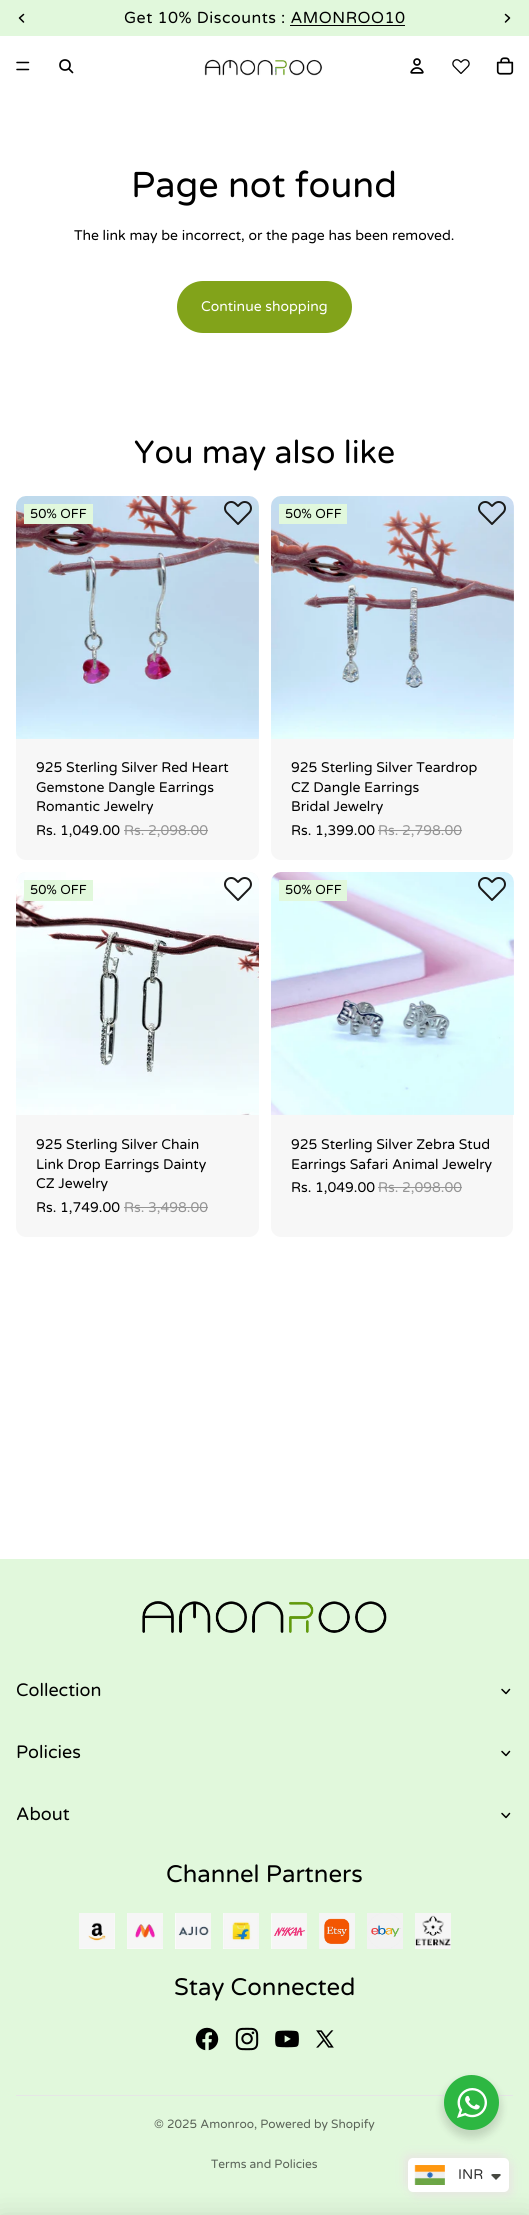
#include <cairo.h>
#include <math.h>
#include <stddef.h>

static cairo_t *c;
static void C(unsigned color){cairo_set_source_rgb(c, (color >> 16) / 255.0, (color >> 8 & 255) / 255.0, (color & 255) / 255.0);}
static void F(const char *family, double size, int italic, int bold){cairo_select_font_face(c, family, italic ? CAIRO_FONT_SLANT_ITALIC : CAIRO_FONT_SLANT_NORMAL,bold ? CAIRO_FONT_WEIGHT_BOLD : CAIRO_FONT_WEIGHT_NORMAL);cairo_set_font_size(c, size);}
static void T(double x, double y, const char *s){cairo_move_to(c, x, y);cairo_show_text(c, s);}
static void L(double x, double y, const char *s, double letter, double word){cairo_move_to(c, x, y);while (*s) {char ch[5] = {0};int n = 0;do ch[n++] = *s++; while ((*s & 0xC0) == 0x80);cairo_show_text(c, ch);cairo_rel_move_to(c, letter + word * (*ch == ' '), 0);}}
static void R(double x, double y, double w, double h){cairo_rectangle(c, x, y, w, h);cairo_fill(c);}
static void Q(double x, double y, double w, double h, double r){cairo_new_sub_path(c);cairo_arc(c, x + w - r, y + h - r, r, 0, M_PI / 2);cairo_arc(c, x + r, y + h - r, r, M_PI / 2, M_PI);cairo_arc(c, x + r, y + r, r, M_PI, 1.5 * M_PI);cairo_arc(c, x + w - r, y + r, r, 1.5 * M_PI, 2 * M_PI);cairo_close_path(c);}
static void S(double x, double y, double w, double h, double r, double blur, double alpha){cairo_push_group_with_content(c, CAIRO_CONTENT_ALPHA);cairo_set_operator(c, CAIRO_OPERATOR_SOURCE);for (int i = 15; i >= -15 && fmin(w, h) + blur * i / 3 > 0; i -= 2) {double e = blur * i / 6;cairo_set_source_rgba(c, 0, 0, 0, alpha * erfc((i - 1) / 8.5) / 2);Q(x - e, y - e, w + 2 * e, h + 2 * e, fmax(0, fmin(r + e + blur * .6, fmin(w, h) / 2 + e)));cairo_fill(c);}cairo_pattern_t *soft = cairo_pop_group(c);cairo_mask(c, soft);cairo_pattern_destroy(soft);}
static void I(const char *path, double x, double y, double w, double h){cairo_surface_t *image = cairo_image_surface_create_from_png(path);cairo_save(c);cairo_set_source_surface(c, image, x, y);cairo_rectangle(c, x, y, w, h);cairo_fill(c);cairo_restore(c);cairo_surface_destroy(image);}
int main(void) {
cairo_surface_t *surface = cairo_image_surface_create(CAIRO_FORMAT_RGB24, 529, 2215);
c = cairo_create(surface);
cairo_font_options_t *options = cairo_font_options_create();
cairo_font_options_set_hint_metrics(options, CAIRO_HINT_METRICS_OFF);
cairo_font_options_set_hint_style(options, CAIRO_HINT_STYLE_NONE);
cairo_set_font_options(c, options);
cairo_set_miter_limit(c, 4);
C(0xffffff);
cairo_paint(c);
C(0xe1f8dc);
R(0,0,529,36);
F("Varela Round",16,0,0);
C(0x000000);
L(124,23,"Get 10% Discounts : AMONROO10",.5,0);
R(290,25,115,1);
cairo_new_path(c);
cairo_move_to(c,23.5,14.5);
cairo_line_to(c,19.5,18);
cairo_line_to(c,23.5,22);
cairo_set_line_width(c,1.5);
cairo_set_line_cap(c,CAIRO_LINE_CAP_ROUND);
cairo_set_line_join(c,CAIRO_LINE_JOIN_ROUND);
cairo_stroke(c);
cairo_new_path(c);
cairo_move_to(c,505.5,14.5);
cairo_line_to(c,509.5,18);
cairo_line_to(c,505.5,22);
cairo_stroke(c);
cairo_new_path(c);
cairo_move_to(c,17,62.5);
cairo_line_to(c,28.5,62.5);
cairo_move_to(c,17,69.5);
cairo_line_to(c,28.5,69.5);
cairo_set_line_join(c,CAIRO_LINE_JOIN_MITER);
cairo_stroke(c);
cairo_arc(c,65,65,5,0,2 * M_PI);
cairo_set_line_width(c,1.7);
cairo_set_line_cap(c,CAIRO_LINE_CAP_BUTT);
cairo_stroke(c);
cairo_new_path(c);
cairo_move_to(c,69,69);
cairo_line_to(c,72.5,72.5);
cairo_set_line_cap(c,CAIRO_LINE_CAP_ROUND);
cairo_set_line_join(c,CAIRO_LINE_JOIN_ROUND);
cairo_stroke(c);
I("1.png",204,59,119,17);
I("2.png",410,58,14,16);
I("3.png",452,59,18,15);
I("4.png",496,57,18,18);
F("Varela Round",36,0,0);
T(131,197,"Page not found");
F("Varela Round",14,0,0);
T(74,240,"The link may be incorrect, or the page has been removed.");
C(0x82a31a);
Q(177,281,175,52,26);
cairo_fill(c);
C(0xffffff);
T(201,311,"Continue shopping");
F("Varela Round",32,0,0);
C(0x000000);
T(134,463,"You may also like");
C(0xf7f7f7);
Q(16,496,243,364,10);
cairo_fill(c);
I("5.png",16,496,243,243);
C(0xe1f8dc);
R(24,504,69,20);
F("Varela Round",13,0,0);
C(0x000000);
T(30,518,"50% OFF");
I("6.png",224,501,28,24);
F("Varela Round",14,0,0);
T(36,772,"925 Sterling Silver Red Heart");
T(36,792,"Gemstone Dangle Earrings");
T(36,811,"Romantic Jewelry");
T(36,835,"Rs. 1,049.00");
C(0x949494);
T(124,835,"Rs. 2,098.00");
R(124,830,84,1);
C(0xf7f7f7);
Q(271,496,242,364,10);
cairo_fill(c);
I("7.png",271,496,243,243);
C(0xe1f8dc);
R(279,504,68,20);
F("Varela Round",13,0,0);
C(0x000000);
T(285,518,"50% OFF");
I("8.png",478,501,28,24);
F("Varela Round",14,0,0);
T(291,772,"925 Sterling Silver Teardrop");
T(291,792,"CZ Dangle Earrings");
T(291,811,"Bridal Jewelry");
T(291,835,"Rs. 1,399.00");
C(0x949494);
T(378,835,"Rs. 2,798.00");
R(378,830,84,1);
C(0xf7f7f7);
Q(16,872,243,365,10);
cairo_fill(c);
I("9.png",16,872,243,243);
C(0xe1f8dc);
R(24,880,69,21);
F("Varela Round",13,0,0);
C(0x000000);
T(30,894,"50% OFF");
I("10.png",224,877,28,24);
F("Varela Round",14,0,0);
T(36,1149,"925 Sterling Silver Chain");
T(36,1169,"Link Drop Earrings Dainty");
T(36,1188,"CZ Jewelry");
T(36,1212,"Rs. 1,749.00");
C(0x949494);
T(124,1212,"Rs. 3,498.00");
R(124,1207,84,1);
C(0xf7f7f7);
Q(271,872,242,365,10);
cairo_fill(c);
I("11.png",271,872,243,243);
C(0xe1f8dc);
R(279,880,68,21);
F("Varela Round",13,0,0);
C(0x000000);
T(285,894,"50% OFF");
I("12.png",478,877,28,24);
F("Varela Round",14,0,0);
T(291,1149,"925 Sterling Silver Zebra Stud");
T(291,1169,"Earrings Safari Animal Jewelry");
T(291,1192,"Rs. 1,049.00");
C(0x949494);
T(378,1192,"Rs. 2,098.00");
R(378,1187,84,1);
C(0xe1f8dc);
R(0,1559,529,656);
I("13.png",142,1601,245,32);
F("Varela Round",18,0,0);
C(0x000000);
T(16,1696,"Collection");
cairo_new_path(c);
cairo_move_to(c,509.5,1689.5);
cairo_line_to(c,506,1693.5);
cairo_line_to(c,502,1689.5);
cairo_set_line_width(c,1.5);
cairo_stroke(c);
T(16,1758,"Policies");
cairo_new_path(c);
cairo_move_to(c,509.5,1751.5);
cairo_line_to(c,506,1755.5);
cairo_line_to(c,502,1751.5);
cairo_stroke(c);
T(16,1820,"About");
cairo_new_path(c);
cairo_move_to(c,509.5,1813.5);
cairo_line_to(c,506,1817.5);
cairo_line_to(c,502,1813.5);
cairo_stroke(c);
F("Varela Round",24,0,0);
T(166,1882,"Channel Partners");
I("14.png",79,1913,36,36);
I("15.png",127,1913,36,36);
I("16.png",175,1913,36,36);
I("17.png",223,1913,36,36);
I("18.png",271,1913,36,36);
I("19.png",319,1913,36,36);
I("20.png",367,1913,36,36);
I("21.png",415,1913,36,36);
T(174,1995,"Stay Connected");
I("22.png",195,2027,24,24);
I("23.png",235,2027,24,24);
I("24.png",275,2030,24,18);
I("25.png",316,2030,18,18);
C(0xe6e6e6);
R(16,2095,497,1);
F("Varela Round",12,0,0);
C(0x5a6358);
T(154,2128,"© 2025 Amonroo, Powered by Shopify");
T(211,2168,"Terms and Policies");
C(0x000000);
S(442,2079,59,59,29.5,4,.14);
C(0x2db742);
cairo_arc(c,471.5,2102.5,27.5,0,2 * M_PI);
cairo_fill(c);
I("26.png",457,2088,30,30);
C(0xe8e8e2);
S(404,2154,101,34,5,4.5,1);
S(412,2162,101,34,5,4.5,1);
C(0x000000);
S(0,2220,529,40,0,15,.15);
C(0xffffff);
Q(408,2158,101,34,5);
cairo_fill(c);
I("27.png",414,2165,31,20);
F("Varela Round",14,0,0);
C(0x333333);
T(458,2179,"INR");
C(0x474942);
cairo_new_path(c);
cairo_move_to(c,493,2174);
cairo_curve_to(c,492,2174,491.5,2174.5,491,2175);
cairo_line_to(c,496,2180);
cairo_line_to(c,501,2175);
cairo_line_to(c,500,2174);
cairo_close_path(c);
cairo_fill(c);
cairo_surface_write_to_png(surface, "o.png");
cairo_font_options_destroy(options);
cairo_destroy(c);
cairo_surface_destroy(surface);
return 0;
}
